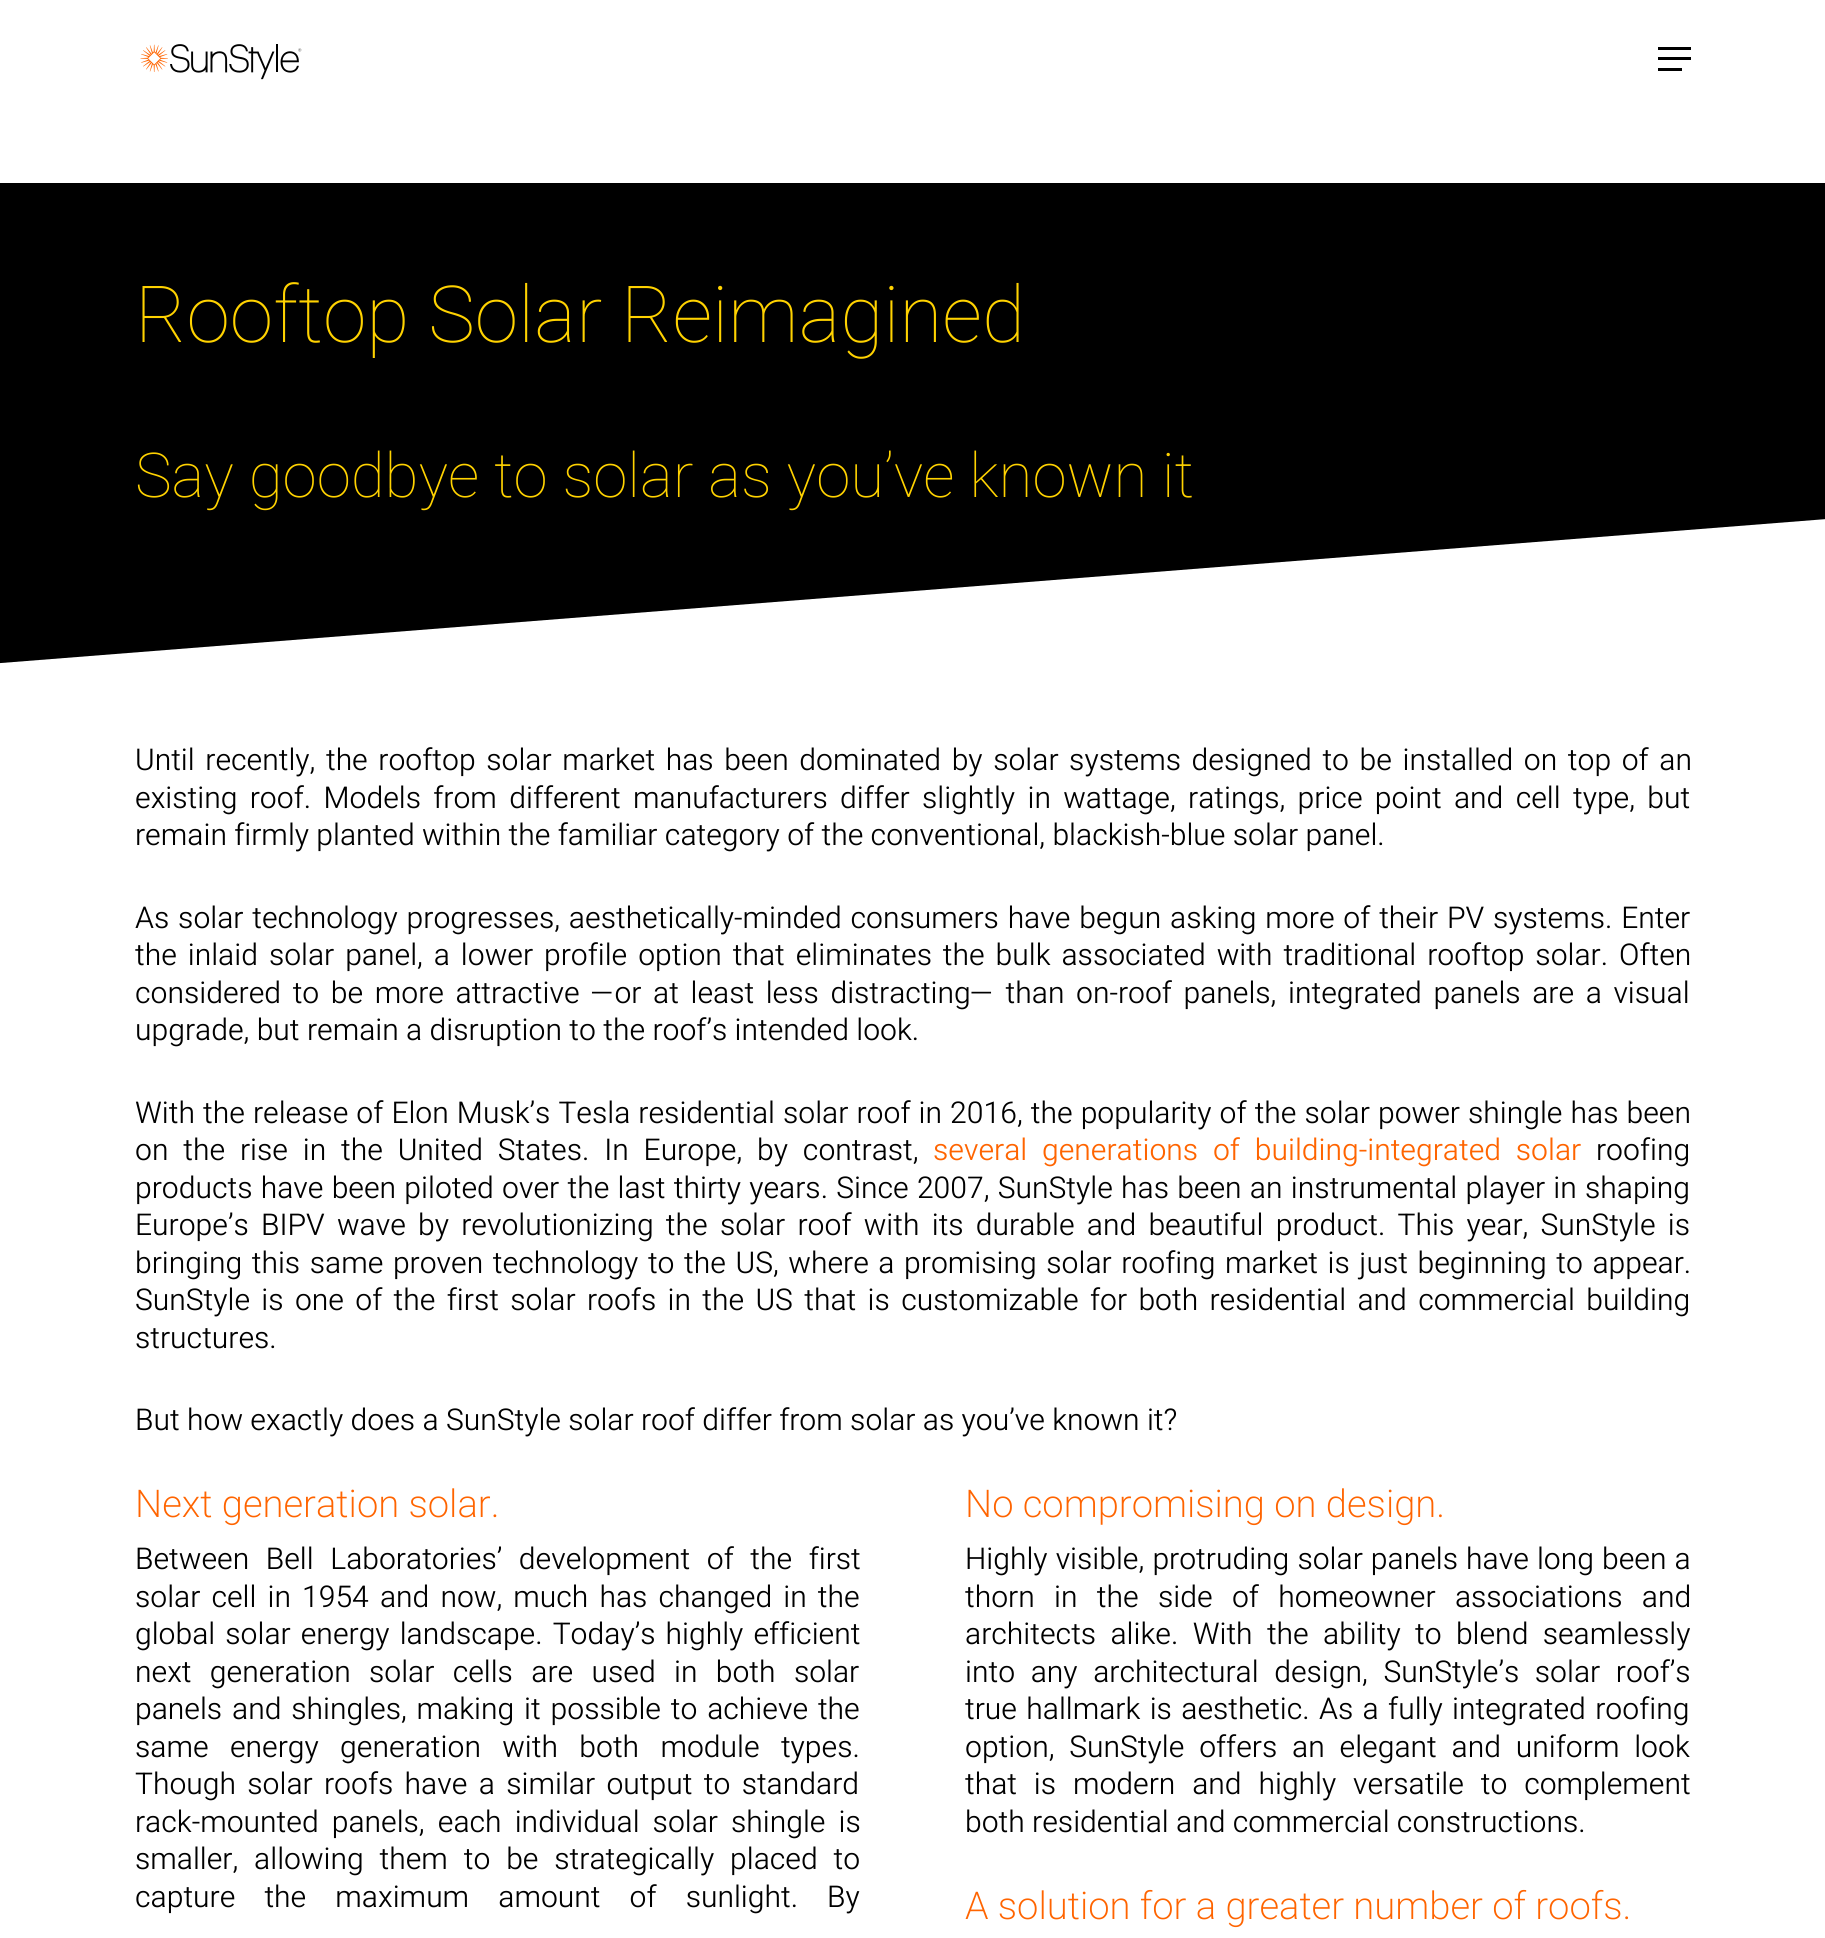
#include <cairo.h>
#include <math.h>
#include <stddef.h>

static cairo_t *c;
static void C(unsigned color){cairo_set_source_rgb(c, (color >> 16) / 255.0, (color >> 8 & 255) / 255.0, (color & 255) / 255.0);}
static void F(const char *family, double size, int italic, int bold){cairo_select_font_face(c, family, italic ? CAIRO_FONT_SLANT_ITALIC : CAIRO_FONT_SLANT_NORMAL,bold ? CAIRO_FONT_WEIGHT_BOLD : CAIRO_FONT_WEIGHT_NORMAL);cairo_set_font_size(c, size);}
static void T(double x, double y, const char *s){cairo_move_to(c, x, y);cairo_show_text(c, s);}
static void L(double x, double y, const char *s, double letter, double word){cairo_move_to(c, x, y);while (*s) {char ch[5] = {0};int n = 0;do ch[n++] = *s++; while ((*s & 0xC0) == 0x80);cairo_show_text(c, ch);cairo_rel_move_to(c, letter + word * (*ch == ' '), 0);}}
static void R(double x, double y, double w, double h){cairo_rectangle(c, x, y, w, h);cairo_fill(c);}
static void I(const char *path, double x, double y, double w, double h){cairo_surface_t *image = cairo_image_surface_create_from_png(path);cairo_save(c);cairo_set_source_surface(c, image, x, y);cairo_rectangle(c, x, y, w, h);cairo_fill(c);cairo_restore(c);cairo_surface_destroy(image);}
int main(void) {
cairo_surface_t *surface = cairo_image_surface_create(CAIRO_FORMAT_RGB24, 1825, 1938);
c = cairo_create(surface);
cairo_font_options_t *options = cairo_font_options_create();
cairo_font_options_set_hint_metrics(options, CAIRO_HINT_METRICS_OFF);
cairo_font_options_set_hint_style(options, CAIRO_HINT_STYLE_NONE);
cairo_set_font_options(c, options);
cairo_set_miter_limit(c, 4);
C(0xffffff);
cairo_paint(c);
I("1.png",140,44,162,36);
C(0x000000);
R(1658,47,33,3);
R(1658,68,24,3);
R(1658,57,33,3);
R(0,183,1825,481);
F("Heebo Thin",78.75,0,0);
C(0xffd200);
T(135,342,"Rooftop Solar Reimagined");
F("Heebo Thin",61.9,0,0);
T(135,497,"Say goodbye to solar as you’ve known it");
C(0xffffff);
cairo_new_path(c);
cairo_move_to(c,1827,669);
cairo_line_to(c,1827,519);
cairo_line_to(c,-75,669);
cairo_close_path(c);
cairo_fill(c);
F("Heebo Light",30,0,0);
C(0x000000);
L(135,770,"Until recently, the rooftop solar market has been dominated by solar systems designed to be installed on top of an",0,3.25);
L(135,808,"existing roof. Models from different manufacturers differ slightly in wattage, ratings, price point and cell type, but",0,5);
T(135,845,"remain firmly planted within the familiar category of the conventional, blackish-blue solar panel.");
L(135,928,"As solar technology progresses, aesthetically-minded consumers have begun asking more of their PV systems. Enter",0,1.5);
L(135,965,"the inlaid solar panel, a lower profile option that eliminates the bulk associated with traditional rooftop solar. Often",0,3.6);
L(135,1003,"considered to be more attractive —or at least less distracting— than on-roof panels, integrated panels are a visual",0,4.25);
T(135,1040,"upgrade, but remain a disruption to the roof’s intended look.");
L(135,1123,"With the release of Elon Musk’s Tesla residential solar roof in 2016, the popularity of the solar power shingle has been",0,.75);
L(135,1160,"on the rise in the United States. In Europe, by contrast,",0,7.5);
C(0xff6400);
L(933,1160,"several generations of building-integrated solar",0,7.5);
C(0x000000);
T(1596,1160,"roofing");
L(135,1198,"products have been piloted over the last thirty years. Since 2007, SunStyle has been an instrumental player in shaping",0,.9);
L(135,1235,"Europe’s BIPV wave by revolutionizing the solar roof with its durable and beautiful product. This year, SunStyle is",0,4.9);
L(135,1273,"bringing this same proven technology to the US, where a promising solar roofing market is just beginning to appear.",0,2.25);
L(135,1310,"SunStyle is one of the first solar roofs in the US that is customizable for both residential and commercial building",0,4);
T(135,1348,"structures.");
T(135,1430,"But how exactly does a SunStyle solar roof differ from solar as you’ve known it?");
F("Heebo ExtraLight",38.25,0,0);
C(0xff6400);
T(135,1517,"Next generation solar.");
F("Heebo Light",30,0,0);
C(0x000000);
L(135,1569,"Between Bell Laboratories’ development of the first",0,9.25);
L(135,1607,"solar cell in 1954 and now, much has changed in the",0,3.75);
L(135,1644,"global solar energy landscape. Today’s highly efficient",0,2.75);
L(135,1682,"next generation solar cells are used in both solar",0,11);
L(135,1719,"panels and shingles, making it possible to achieve the",0,2.5);
L(135,1757,"same energy generation with both module types.",0,14);
L(135,1794,"Though solar roofs have a similar output to standard",0,4);
L(135,1832,"rack-mounted panels, each individual solar shingle is",0,5.75);
L(135,1869,"smaller, allowing them to be strategically placed to",0,8.5);
L(135,1907,"capture the maximum amount of sunlight. By",0,21.75);
F("Heebo ExtraLight",38.25,0,0);
C(0xff6400);
T(965,1517,"No compromising on design.");
F("Heebo Light",30,0,0);
C(0x000000);
L(965,1569,"Highly visible, protruding solar panels have long been a",0,.75);
L(965,1607,"thorn in the side of homeowner associations and",0,12);
L(965,1644,"architects alike. With the ability to blend seamlessly",0,7);
L(965,1682,"into any architectural design, SunStyle’s solar roof’s",0,8.25);
L(965,1719,"true hallmark is aesthetic. As a fully integrated roofing",0,2);
L(965,1757,"option, SunStyle offers an elegant and uniform look",0,7.5);
L(965,1794,"that is modern and highly versatile to complement",0,9.5);
T(965,1832,"both residential and commercial constructions.");
F("Heebo ExtraLight",38.25,0,0);
C(0xff6400);
T(965,1919,"A solution for a greater number of roofs.");
cairo_surface_write_to_png(surface, "o.png");
cairo_font_options_destroy(options);
cairo_destroy(c);
cairo_surface_destroy(surface);
return 0;
}
